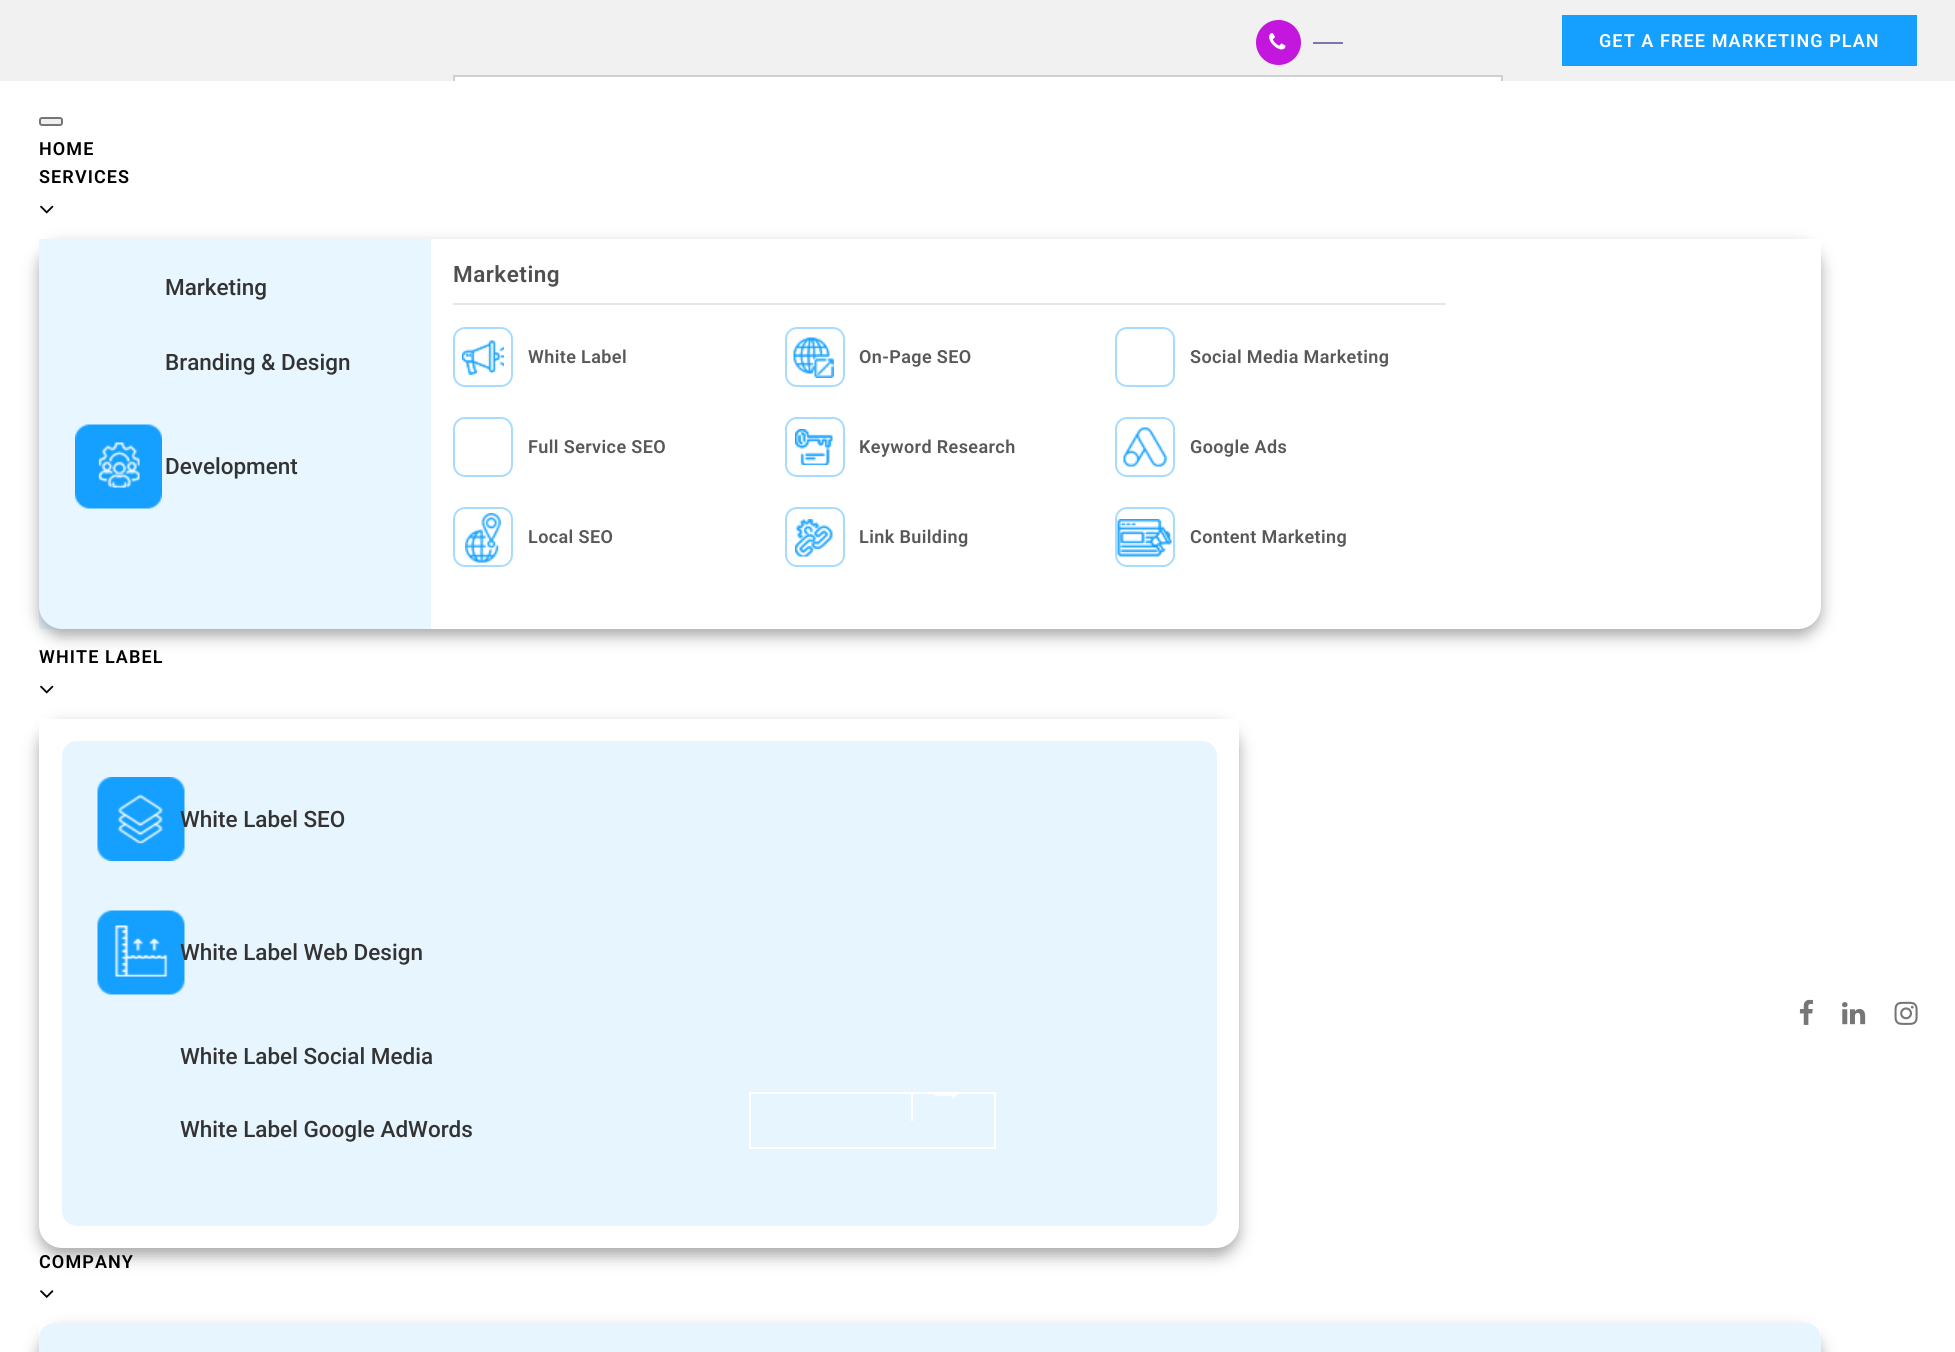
#include <cairo.h>
#include <math.h>
#include <stddef.h>

static cairo_t *c;
static void C(unsigned color){cairo_set_source_rgb(c, (color >> 16) / 255.0, (color >> 8 & 255) / 255.0, (color & 255) / 255.0);}
static void F(const char *family, double size, int italic, int bold){cairo_select_font_face(c, family, italic ? CAIRO_FONT_SLANT_ITALIC : CAIRO_FONT_SLANT_NORMAL,bold ? CAIRO_FONT_WEIGHT_BOLD : CAIRO_FONT_WEIGHT_NORMAL);cairo_set_font_size(c, size);}
static void T(double x, double y, const char *s){cairo_move_to(c, x, y);cairo_show_text(c, s);}
static void L(double x, double y, const char *s, double letter, double word){cairo_move_to(c, x, y);while (*s) {char ch[5] = {0};int n = 0;do ch[n++] = *s++; while ((*s & 0xC0) == 0x80);cairo_show_text(c, ch);cairo_rel_move_to(c, letter + word * (*ch == ' '), 0);}}
static void R(double x, double y, double w, double h){cairo_rectangle(c, x, y, w, h);cairo_fill(c);}
static void Q(double x, double y, double w, double h, double r){cairo_new_sub_path(c);cairo_arc(c, x + w - r, y + h - r, r, 0, M_PI / 2);cairo_arc(c, x + r, y + h - r, r, M_PI / 2, M_PI);cairo_arc(c, x + r, y + r, r, M_PI, 1.5 * M_PI);cairo_arc(c, x + w - r, y + r, r, 1.5 * M_PI, 2 * M_PI);cairo_close_path(c);}
static void S(double x, double y, double w, double h, double r, double blur, double alpha){cairo_push_group_with_content(c, CAIRO_CONTENT_ALPHA);cairo_set_operator(c, CAIRO_OPERATOR_SOURCE);for (int i = 15; i >= -15 && fmin(w, h) + blur * i / 3 > 0; i -= 2) {double e = blur * i / 6;cairo_set_source_rgba(c, 0, 0, 0, alpha * erfc((i - 1) / 8.5) / 2);Q(x - e, y - e, w + 2 * e, h + 2 * e, fmax(0, fmin(r + e + blur * .6, fmin(w, h) / 2 + e)));cairo_fill(c);}cairo_pattern_t *soft = cairo_pop_group(c);cairo_mask(c, soft);cairo_pattern_destroy(soft);}
static void I(const char *path, double x, double y, double w, double h){cairo_surface_t *image = cairo_image_surface_create_from_png(path);cairo_save(c);cairo_set_source_surface(c, image, x, y);cairo_rectangle(c, x, y, w, h);cairo_fill(c);cairo_restore(c);cairo_surface_destroy(image);}
int main(void) {
cairo_surface_t *surface = cairo_image_surface_create(CAIRO_FORMAT_RGB24, 1955, 1352);
c = cairo_create(surface);
cairo_font_options_t *options = cairo_font_options_create();
cairo_font_options_set_hint_metrics(options, CAIRO_HINT_METRICS_OFF);
cairo_font_options_set_hint_style(options, CAIRO_HINT_STYLE_NONE);
cairo_set_font_options(c, options);
cairo_set_miter_limit(c, 4);
C(0xf1f1f1);
cairo_paint(c);
C(0xffffff);
R(455,77,1046,4);
cairo_rectangle(c,454,76,1048,358);
C(0xccd0d4);
cairo_stroke(c);
C(0xc417dd);
cairo_arc(c,1278.5,42.5,22.5,0,2 * M_PI);
cairo_fill(c);
I("1.png",1269,33,17,17);
C(0x8074aa);
R(1313,42,30,2);
C(0x15a0ff);
R(1562,15,355,51);
F("Roboto SemiBold",18,0,0);
C(0xffffff);
L(1599,47,"GET A FREE MARKETING PLAN",1.1,0);
R(0,81,1955,1271);
C(0xefefef);
Q(40,118,22,7,2);
cairo_fill_preserve(c);
C(0x767676);
cairo_stroke(c);
C(0x000000);
L(39,155,"HOME",1.1,0);
L(39,183,"SERVICES",1.1,0);
I("2.png",40,205,14,9);
C(0x383838);
S(39,246,1782,390,23,7.5,.43);
C(0xffffff);
cairo_new_path(c);
cairo_move_to(c,39,239);
cairo_line_to(c,1821,239);
cairo_line_to(c,1821,606);
cairo_curve_to(c,1821,618.5,1810.5,629,1798,629);
cairo_line_to(c,62,629);
cairo_curve_to(c,49.5,629,39,618.5,39,606);
cairo_close_path(c);
cairo_fill(c);
cairo_set_source_rgba(c,0.082,0.627,1,0.1);
R(39,239,392,390);
F("Roboto Medium",22.5,0,0);
C(0x333333);
T(165,295,"Marketing");
T(165,370,"Branding & Design");
I("3.png",75,424,87,85);
T(165,474,"Development");
C(0xe6e6e6);
R(453,303,993,2);
F("Roboto SemiBold",22.5,0,0);
C(0x4f4f4f);
L(453,282,"Marketing",.5,0);
Q(454,328,58,58,11);
C(0xa8dcff);
cairo_stroke(c);
I("4.png",462,340,42,35);
F("Roboto SemiBold",18,0,0);
C(0x585858);
L(528,363,"White Label",.4,0);
Q(786,328,58,58,11);
C(0xa8dcff);
cairo_stroke(c);
I("5.png",793,337,41,41);
C(0x585858);
L(859,363,"On-Page SEO",.4,0);
Q(1116,328,58,58,11);
C(0xa8dcff);
cairo_stroke(c);
C(0x585858);
L(1190,363,"Social Media Marketing",.4,0);
Q(454,418,58,58,11);
C(0xa8dcff);
cairo_stroke(c);
C(0x585858);
L(528,453,"Full Service SEO",.4,0);
Q(786,418,58,58,11);
C(0xa8dcff);
cairo_stroke(c);
I("6.png",795,429,38,36);
C(0x585858);
L(859,453,"Keyword Research",.4,0);
Q(1116,418,58,58,11);
C(0xa8dcff);
cairo_stroke(c);
I("7.png",1123,427,44,40);
C(0x585858);
L(1190,453,"Google Ads",.4,0);
Q(454,508,58,58,11);
C(0xa8dcff);
cairo_stroke(c);
I("8.png",465,513,36,50);
C(0x585858);
L(528,543,"Local SEO",.4,0);
Q(786,508,58,58,11);
C(0xa8dcff);
cairo_stroke(c);
I("9.png",795,519,38,38);
C(0x585858);
L(859,543,"Link Building",.4,0);
Q(1116,508,58,58,11);
C(0xa8dcff);
cairo_stroke(c);
I("10.png",1117,519,55,38);
C(0x585858);
L(1190,543,"Content Marketing",.4,0);
C(0x000000);
L(39,663,"WHITE LABEL",1.1,0);
I("2.png",40,685,14,9);
C(0x383838);
S(39,726,1200,530,23,7.5,.43);
C(0xffffff);
cairo_new_path(c);
cairo_move_to(c,39,719);
cairo_line_to(c,1239,719);
cairo_line_to(c,1239,1225);
cairo_curve_to(c,1239,1237.5,1228.5,1248,1216,1248);
cairo_line_to(c,62,1248);
cairo_curve_to(c,49.5,1248,39,1237.5,39,1225);
cairo_close_path(c);
cairo_fill(c);
C(0xe7f5fe);
Q(62,741,1155,485,15);
cairo_fill(c);
I("11.png",97,777,88,84);
F("Roboto Medium",22.5,0,0);
C(0x333333);
T(180,827,"White Label SEO");
I("12.png",97,910,88,85);
T(180,960,"White Label Web Design");
T(180,1064,"White Label Social Media");
T(180,1137,"White Label Google AdWords");
cairo_rectangle(c,750,1093,245,55);
C(0xffffff);
cairo_stroke(c);
R(911,1094,2,27);
I("13.png",934,1094,24,5);
F("Roboto SemiBold",18,0,0);
C(0x000000);
L(39,1268,"COMPANY",1.1,0);
I("14.png",40,1290,14,8);
cairo_save(c);
cairo_set_fill_rule(c,CAIRO_FILL_RULE_EVEN_ODD);
cairo_new_path(c);
cairo_move_to(c,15,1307);
cairo_line_to(c,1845,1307);
cairo_line_to(c,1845,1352);
cairo_line_to(c,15,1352);
cairo_close_path(c);
cairo_move_to(c,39,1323);
cairo_line_to(c,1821,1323);
cairo_line_to(c,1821,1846);
cairo_curve_to(c,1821,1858.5,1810.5,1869,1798,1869);
cairo_line_to(c,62,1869);
cairo_curve_to(c,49.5,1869,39,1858.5,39,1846);
cairo_close_path(c);
cairo_clip(c);
C(0x383838);
S(39,1331,1782,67,23,7.5,.43);
cairo_restore(c);
C(0xe7f5fe);
Q(39,1323,1782,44,15);
cairo_fill(c);
I("15.png",1799,999,14,26);
I("16.png",1842,1002,24,23);
I("17.png",1894,1001,24,24);
cairo_surface_write_to_png(surface, "o.png");
cairo_font_options_destroy(options);
cairo_destroy(c);
cairo_surface_destroy(surface);
return 0;
}
